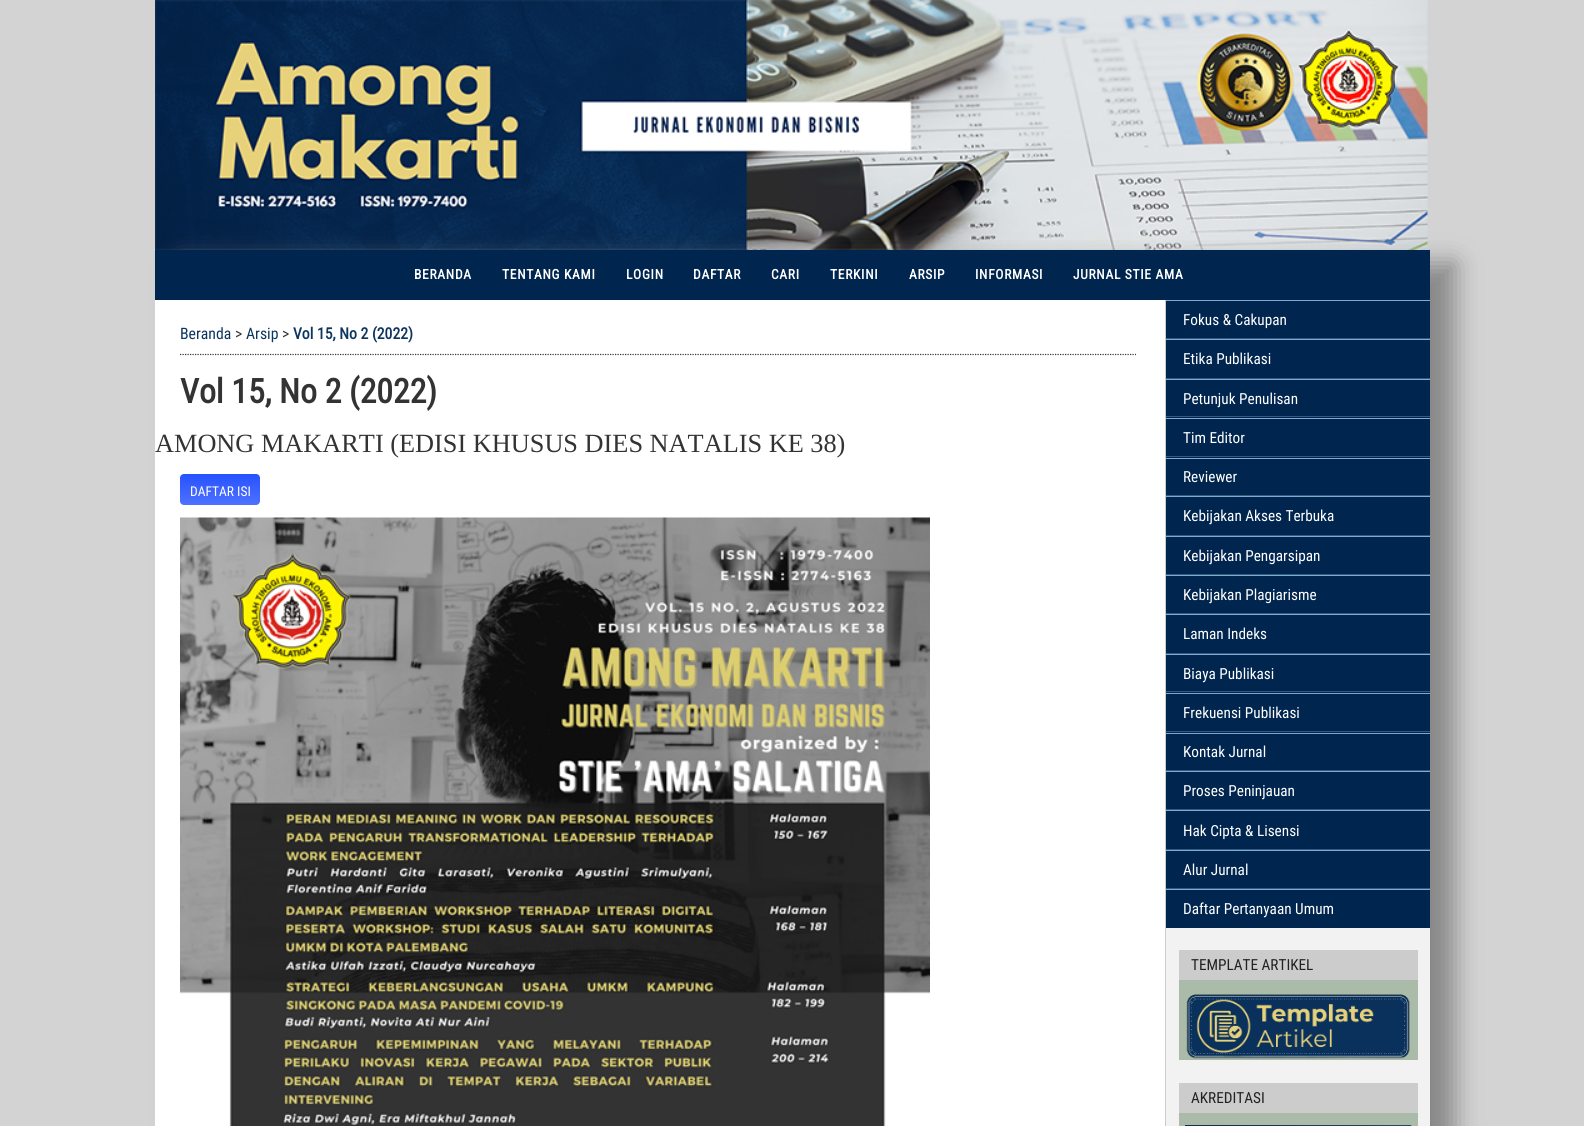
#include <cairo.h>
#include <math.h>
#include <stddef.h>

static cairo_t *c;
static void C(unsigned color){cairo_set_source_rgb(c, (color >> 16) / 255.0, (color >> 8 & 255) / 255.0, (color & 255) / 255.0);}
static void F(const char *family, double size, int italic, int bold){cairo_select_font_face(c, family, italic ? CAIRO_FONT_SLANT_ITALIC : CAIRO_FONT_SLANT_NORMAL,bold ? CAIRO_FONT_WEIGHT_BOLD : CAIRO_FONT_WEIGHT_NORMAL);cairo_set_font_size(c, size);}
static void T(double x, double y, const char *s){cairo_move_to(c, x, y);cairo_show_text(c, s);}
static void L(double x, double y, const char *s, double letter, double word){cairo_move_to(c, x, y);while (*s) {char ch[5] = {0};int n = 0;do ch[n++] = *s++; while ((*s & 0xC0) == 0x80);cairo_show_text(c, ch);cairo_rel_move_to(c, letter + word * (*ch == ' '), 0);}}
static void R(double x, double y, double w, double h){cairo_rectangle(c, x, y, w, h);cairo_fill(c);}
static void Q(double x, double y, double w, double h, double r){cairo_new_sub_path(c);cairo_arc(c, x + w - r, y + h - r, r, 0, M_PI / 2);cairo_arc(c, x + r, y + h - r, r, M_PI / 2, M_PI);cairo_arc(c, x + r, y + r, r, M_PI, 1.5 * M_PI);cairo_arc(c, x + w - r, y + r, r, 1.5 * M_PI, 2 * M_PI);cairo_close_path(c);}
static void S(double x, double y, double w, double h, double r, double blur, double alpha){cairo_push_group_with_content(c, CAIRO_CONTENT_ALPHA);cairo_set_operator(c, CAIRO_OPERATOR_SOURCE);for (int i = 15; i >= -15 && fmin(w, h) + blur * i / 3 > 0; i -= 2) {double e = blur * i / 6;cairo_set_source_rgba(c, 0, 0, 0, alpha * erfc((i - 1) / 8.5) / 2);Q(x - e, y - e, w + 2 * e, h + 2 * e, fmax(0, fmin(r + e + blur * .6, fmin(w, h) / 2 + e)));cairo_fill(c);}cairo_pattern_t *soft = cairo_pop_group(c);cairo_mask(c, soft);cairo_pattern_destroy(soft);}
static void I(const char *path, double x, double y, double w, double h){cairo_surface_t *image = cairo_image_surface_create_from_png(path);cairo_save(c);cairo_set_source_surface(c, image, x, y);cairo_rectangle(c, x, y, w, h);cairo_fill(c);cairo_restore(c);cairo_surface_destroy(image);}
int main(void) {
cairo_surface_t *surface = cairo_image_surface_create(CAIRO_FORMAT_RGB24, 1584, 1126);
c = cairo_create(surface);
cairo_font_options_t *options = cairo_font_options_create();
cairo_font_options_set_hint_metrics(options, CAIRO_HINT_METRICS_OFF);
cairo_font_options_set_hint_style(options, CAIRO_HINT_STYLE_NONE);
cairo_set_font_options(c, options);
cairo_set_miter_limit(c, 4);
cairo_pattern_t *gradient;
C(0xd3d3d3);
cairo_paint(c);
I("1.png",155,0,1273,250);
C(0x888888);
S(180,263,1275,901,0,12.5,1);
C(0xffffff);
R(155,300,1010,826);
C(0x00254f);
R(155,250,1275,50);
F("Roboto Condensed",13.5,0,1);
C(0xffffff);
L(414,279,"BERANDA",.7,0);
L(502,279,"TENTANG KAMI",.7,0);
L(626,279,"LOGIN",.7,0);
L(693,279,"DAFTAR",.7,0);
L(771,279,"CARI",.7,0);
L(830,279,"TERKINI",.7,0);
L(909,279,"ARSIP",.7,0);
L(975,279,"INFORMASI",.7,0);
L(1073,279,"JURNAL STIE AMA",.7,0);
cairo_new_path(c);
cairo_move_to(c,180,354.5);
cairo_line_to(c,1136,354.5);
C(0x333333);
cairo_set_line_width(c,1.2);
cairo_set_dash(c,(double[]){1.25,1.25},2,0);
cairo_stroke(c);
F("Roboto Condensed",15.75,0,0);
C(0x0d355e);
T(180,339,"Beranda");
C(0x333333);
T(235,339,">");
C(0x0d355e);
T(246,339,"Arsip");
C(0x333333);
T(282,339,">");
F("Roboto Condensed",15.75,0,1);
C(0x0d355e);
T(293,339,"Vol 15, No 2 (2022)");
F("Roboto Condensed",33.75,0,1);
C(0x333333);
T(180,403,"Vol 15, No 2 (2022)");
F("Liberation Serif",26.3,0,0);
T(155,452,"AMONG MAKARTI (EDISI KHUSUS DIES NATALIS KE 38)");
gradient = cairo_pattern_create_linear(220,474,220,505);
cairo_pattern_add_color_stop_rgba(gradient,0,0.149,0.318,1,1);
cairo_pattern_add_color_stop_rgba(gradient,1,0.31,0.447,1,1);
cairo_set_source(c,gradient);
cairo_pattern_destroy(gradient);
Q(180,474,80,31,4);
cairo_fill(c);
F("Roboto Condensed",13.5,0,0);
C(0xffffff);
T(190,496,"DAFTAR ISI");
I("2.png",180,517,750,609);
C(0xf2f2f2);
R(1166,928,264,198);
C(0xcccccc);
R(1165,300,1,826);
C(0x00254f);
R(1166,301,264,37);
C(0x80abce);
R(1166,300,264,1);
C(0x315c80);
R(1166,338,264,1);
F("Roboto Condensed",15.25,0,0);
C(0xffffff);
T(1183,325,"Fokus & Cakupan");
C(0x00254f);
R(1166,340,264,38);
C(0x80abce);
R(1166,339,264,1);
C(0x315c80);
R(1166,378,264,1);
C(0xffffff);
T(1183,364,"Etika Publikasi");
C(0x00254f);
R(1166,380,264,38);
C(0x80abce);
R(1166,379,264,1);
C(0x315c80);
R(1166,416,264,1);
C(0xffffff);
T(1183,404,"Petunjuk Penulisan");
C(0x00254f);
R(1166,419,264,39);
C(0x80abce);
R(1166,418,264,1);
C(0x315c80);
R(1166,456,264,1);
C(0xffffff);
T(1183,443,"Tim Editor");
C(0x00254f);
R(1166,459,264,36);
C(0x80abce);
R(1166,458,264,1);
C(0x315c80);
R(1166,495,264,1);
C(0xffffff);
T(1183,482,"Reviewer");
C(0x00254f);
R(1166,497,264,38);
C(0x80abce);
R(1166,496,264,1);
C(0x315c80);
R(1166,535,264,1);
C(0xffffff);
T(1183,521,"Kebijakan Akses Terbuka");
C(0x00254f);
R(1166,537,264,37);
C(0x80abce);
R(1166,536,264,1);
C(0x315c80);
R(1166,574,264,1);
C(0xffffff);
T(1183,561,"Kebijakan Pengarsipan");
C(0x00254f);
R(1166,576,264,37);
C(0x80abce);
R(1166,575,264,1);
C(0x315c80);
R(1166,613,264,1);
C(0xffffff);
T(1183,600,"Kebijakan Plagiarisme");
C(0x00254f);
R(1166,615,264,38);
C(0x80abce);
R(1166,614,264,1);
C(0x315c80);
R(1166,653,264,1);
C(0xffffff);
T(1183,639,"Laman Indeks");
C(0x00254f);
R(1166,655,264,38);
C(0x80abce);
R(1166,654,264,1);
C(0x315c80);
R(1166,691,264,1);
C(0xffffff);
T(1183,679,"Biaya Publikasi");
C(0x00254f);
R(1166,694,264,39);
C(0x80abce);
R(1166,693,264,1);
C(0x315c80);
R(1166,731,264,1);
C(0xffffff);
T(1183,718,"Frekuensi Publikasi");
C(0x00254f);
R(1166,734,264,36);
C(0x80abce);
R(1166,733,264,1);
C(0x315c80);
R(1166,770,264,1);
C(0xffffff);
T(1183,757,"Kontak Jurnal");
C(0x00254f);
R(1166,772,264,37);
C(0x80abce);
R(1166,771,264,1);
C(0x315c80);
R(1166,809,264,1);
C(0xffffff);
T(1183,796,"Proses Peninjauan");
C(0x00254f);
R(1166,811,264,38);
C(0x80abce);
R(1166,810,264,1);
C(0x315c80);
R(1166,849,264,1);
C(0xffffff);
T(1183,836,"Hak Cipta & Lisensi");
C(0x00254f);
R(1166,851,264,37);
C(0x80abce);
R(1166,850,264,1);
C(0x315c80);
R(1166,888,264,1);
C(0xffffff);
T(1183,875,"Alur Jurnal");
C(0x00254f);
R(1166,890,264,38);
C(0x80abce);
R(1166,889,264,1);
C(0xffffff);
T(1183,914,"Daftar Pertanyaan Umum");
C(0xaabbaa);
R(1179,980,239,80);
C(0xcccccc);
R(1179,950,239,30);
C(0x222222);
T(1191,970,"TEMPLATE ARTIKEL");
I("3.png",1186,994,224,65);
C(0xaabbaa);
R(1179,1113,239,13);
C(0xcccccc);
R(1179,1083,239,30);
C(0x222222);
T(1191,1103,"AKREDITASI");
I("4.png",1185,1125,227,1);
cairo_surface_write_to_png(surface, "o.png");
cairo_font_options_destroy(options);
cairo_destroy(c);
cairo_surface_destroy(surface);
return 0;
}
